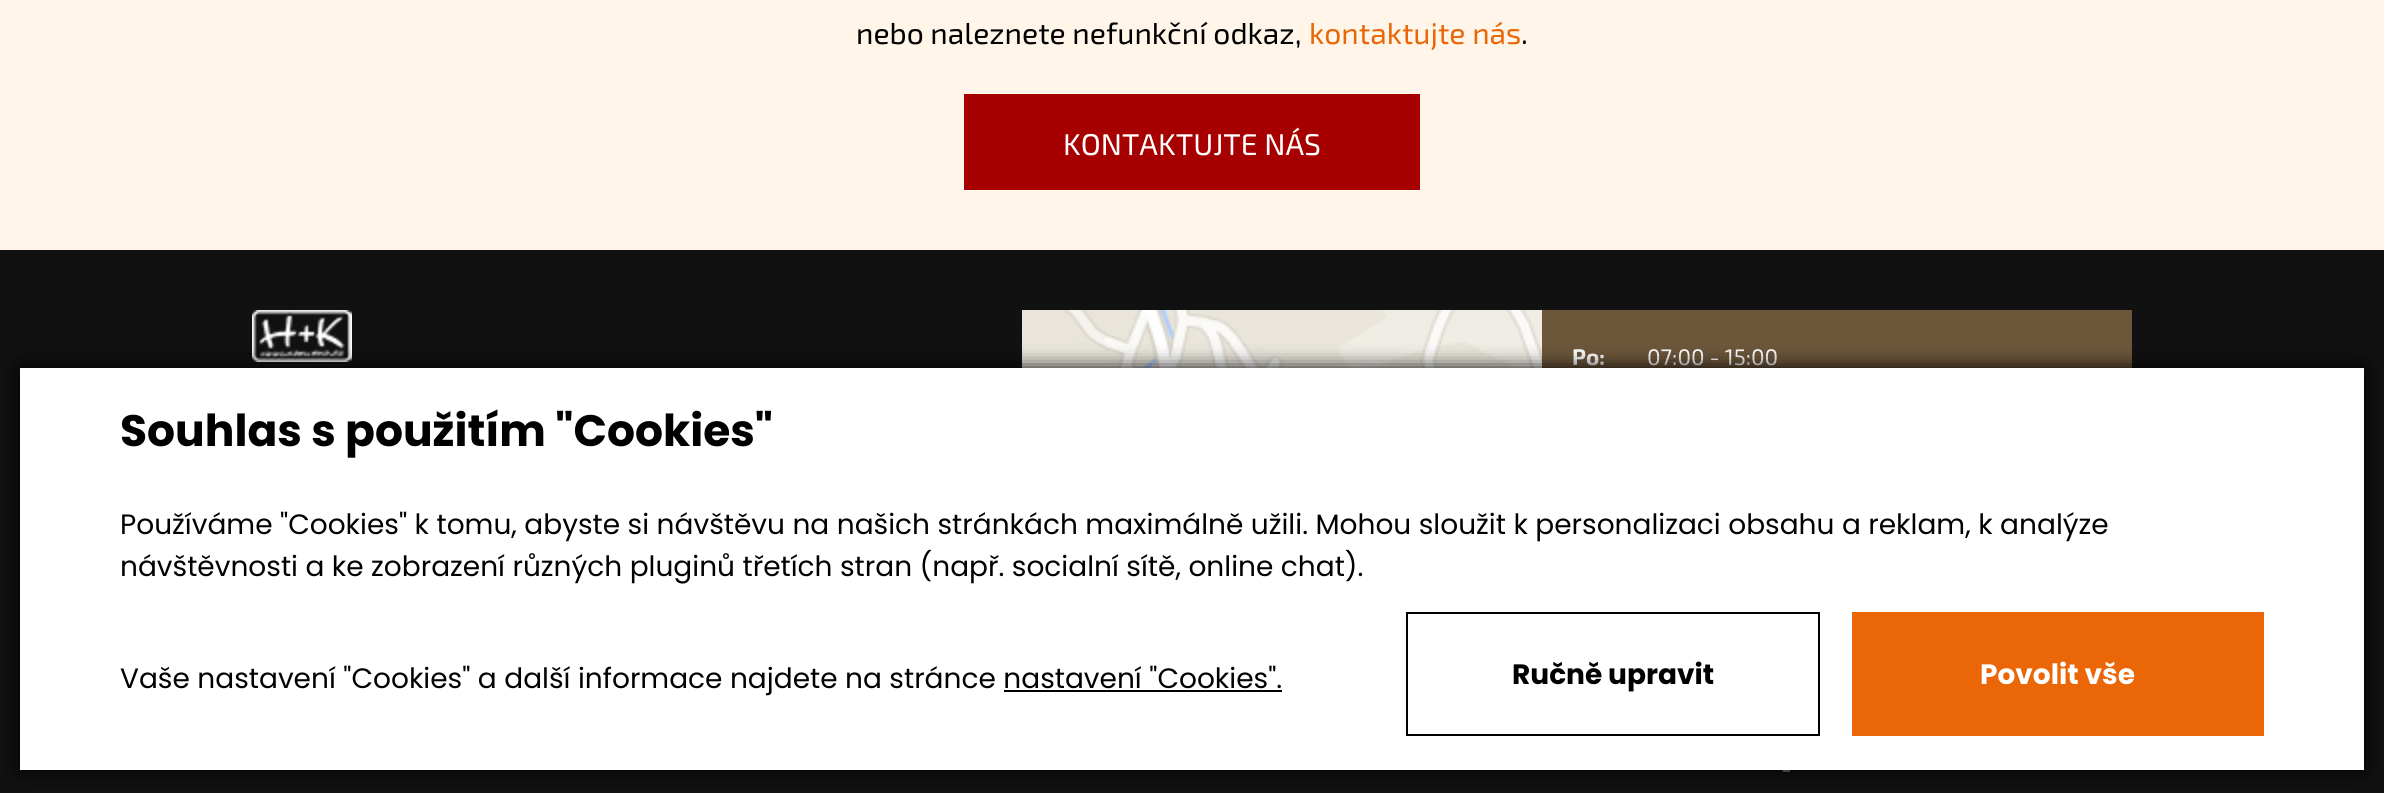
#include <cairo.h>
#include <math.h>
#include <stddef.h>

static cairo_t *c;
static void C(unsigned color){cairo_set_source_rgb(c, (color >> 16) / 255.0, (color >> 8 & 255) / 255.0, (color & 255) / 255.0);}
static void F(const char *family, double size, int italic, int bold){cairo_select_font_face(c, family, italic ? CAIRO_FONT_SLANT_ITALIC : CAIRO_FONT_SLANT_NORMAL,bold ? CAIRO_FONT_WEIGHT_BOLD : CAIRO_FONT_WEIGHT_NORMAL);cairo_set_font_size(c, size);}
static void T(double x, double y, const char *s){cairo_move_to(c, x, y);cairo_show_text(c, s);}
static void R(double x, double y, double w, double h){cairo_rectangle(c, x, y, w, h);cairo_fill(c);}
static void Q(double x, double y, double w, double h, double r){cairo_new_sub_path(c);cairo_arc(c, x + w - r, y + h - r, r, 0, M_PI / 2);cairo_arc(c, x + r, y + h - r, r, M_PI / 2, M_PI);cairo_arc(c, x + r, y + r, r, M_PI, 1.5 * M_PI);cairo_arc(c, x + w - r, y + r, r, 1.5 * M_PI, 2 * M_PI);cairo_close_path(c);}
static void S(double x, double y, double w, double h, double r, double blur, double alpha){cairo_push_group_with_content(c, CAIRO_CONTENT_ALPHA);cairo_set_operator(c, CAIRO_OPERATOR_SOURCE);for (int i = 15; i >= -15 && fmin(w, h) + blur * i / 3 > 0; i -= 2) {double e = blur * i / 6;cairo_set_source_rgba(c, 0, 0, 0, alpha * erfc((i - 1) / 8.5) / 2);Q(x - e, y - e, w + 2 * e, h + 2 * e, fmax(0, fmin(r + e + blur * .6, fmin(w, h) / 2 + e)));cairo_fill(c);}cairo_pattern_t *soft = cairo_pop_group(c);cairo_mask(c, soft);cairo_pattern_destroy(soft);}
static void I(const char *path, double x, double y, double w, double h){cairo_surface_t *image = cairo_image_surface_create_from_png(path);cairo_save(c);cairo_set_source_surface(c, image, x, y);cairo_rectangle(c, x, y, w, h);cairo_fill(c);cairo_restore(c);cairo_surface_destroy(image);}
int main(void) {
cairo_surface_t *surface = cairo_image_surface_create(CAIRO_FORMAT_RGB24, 2384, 793);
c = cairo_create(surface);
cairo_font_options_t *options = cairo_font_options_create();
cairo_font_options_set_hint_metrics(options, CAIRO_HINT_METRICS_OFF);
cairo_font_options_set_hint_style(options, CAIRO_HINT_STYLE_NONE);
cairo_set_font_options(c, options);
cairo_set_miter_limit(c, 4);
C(0xfff6e9);
cairo_paint(c);
F("Exo 2",30,0,0);
C(0x000000);
T(856,44,"nebo naleznete nefunkční odkaz,");
C(0xeb6606);
T(1309,44,"kontaktujte nás");
C(0x000000);
T(1521,44,".");
C(0xa60000);
R(964,94,456,96);
C(0xffffff);
T(1063,155,"KONTAKTUJTE NÁS");
C(0x111111);
R(0,250,2384,543);
I("1.png",252,310,100,52);
I("2.png",1022,310,520,58);
C(0x6d573b);
R(1542,310,590,58);
F("Exo 2",22.5,0,1);
C(0xffffff);
T(1572,365,"Po:");
F("Exo 2",22.5,0,0);
T(1647,365,"07:00 - 15:00");
F("Exo 2",24,0,0);
C(0x989795);
T(1781,777,"-");
C(0x000000);
S(20,368,2344,402,0,10,1);
C(0xffffff);
R(20,368,2344,402);
F("Poppins",44,0,1);
C(0x000000);
T(120,446,"Souhlas s použitím \"Cookies\"");
F("Poppins",28,0,0);
T(120,534,"Používáme \"Cookies\" k tomu, abyste si návštěvu na našich stránkách maximálně užili. Mohou sloužit k personalizaci obsahu a reklam, k analýze");
T(120,576,"návštěvnosti a ke zobrazení různých pluginů třetích stran (např. socialní sítě, online chat).");
T(120,688,"Vaše nastavení \"Cookies\" a další informace najdete na stránce nastavení \"Cookies\".");
R(1004,690,278,2);
cairo_rectangle(c,1407,613,412,122);
cairo_stroke(c);
F("Poppins",28,0,1);
T(1512,684,"Ručně upravit");
C(0xeb6606);
R(1852,612,412,124);
C(0xffffff);
T(1980,684,"Povolit vše");
cairo_surface_write_to_png(surface, "o.png");
cairo_font_options_destroy(options);
cairo_destroy(c);
cairo_surface_destroy(surface);
return 0;
}
